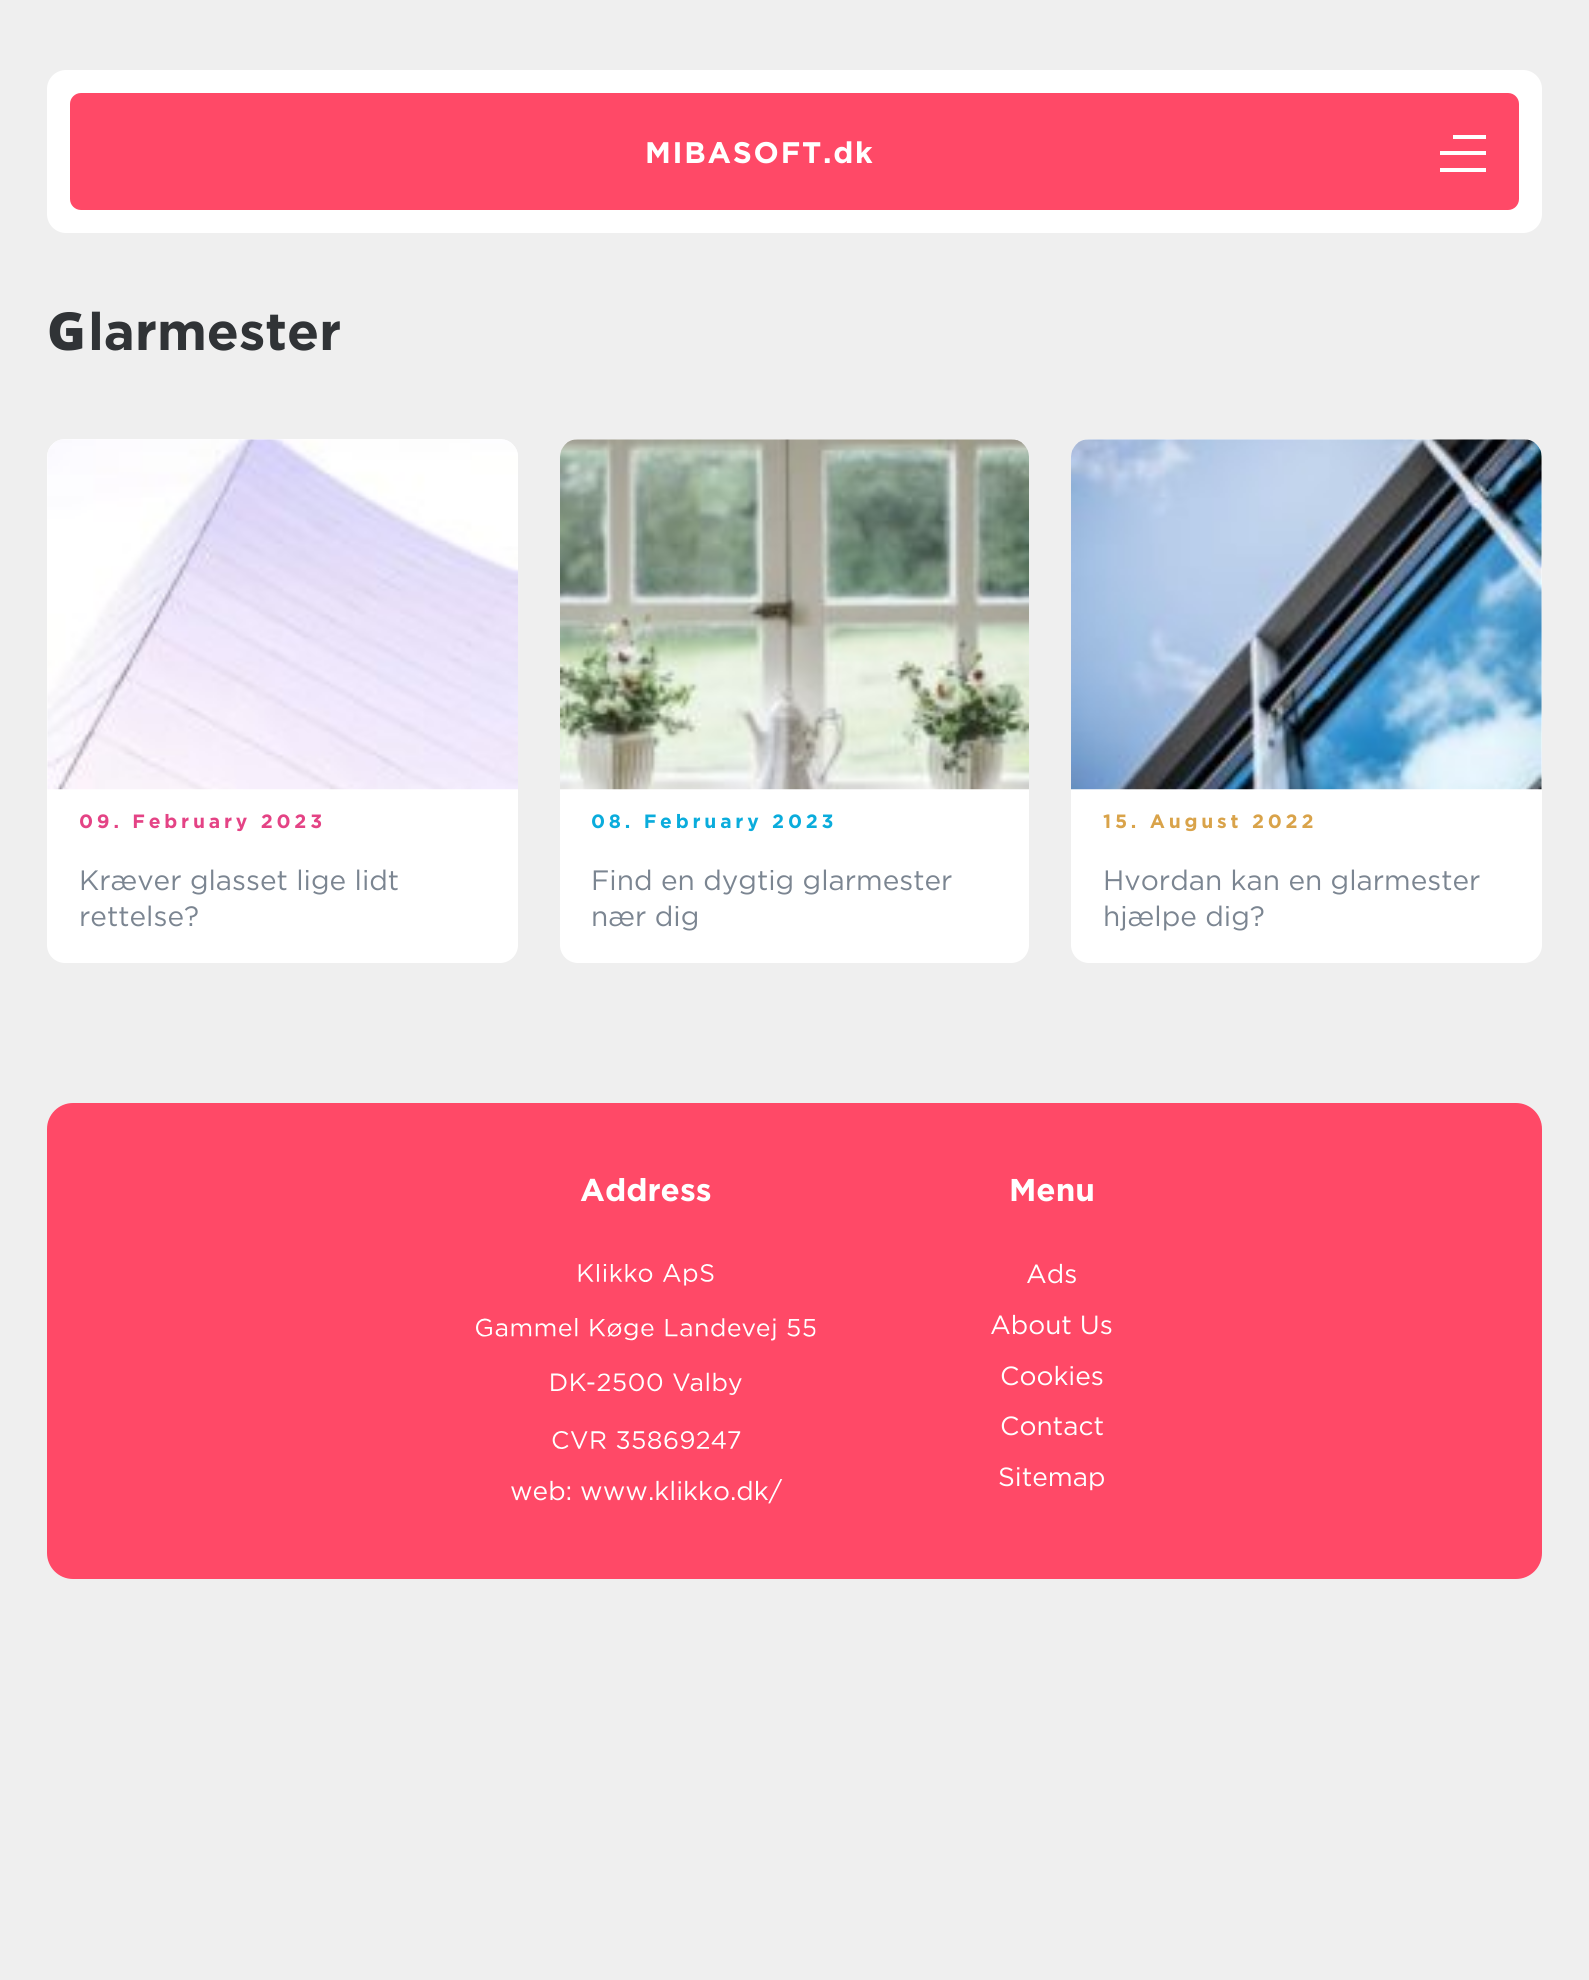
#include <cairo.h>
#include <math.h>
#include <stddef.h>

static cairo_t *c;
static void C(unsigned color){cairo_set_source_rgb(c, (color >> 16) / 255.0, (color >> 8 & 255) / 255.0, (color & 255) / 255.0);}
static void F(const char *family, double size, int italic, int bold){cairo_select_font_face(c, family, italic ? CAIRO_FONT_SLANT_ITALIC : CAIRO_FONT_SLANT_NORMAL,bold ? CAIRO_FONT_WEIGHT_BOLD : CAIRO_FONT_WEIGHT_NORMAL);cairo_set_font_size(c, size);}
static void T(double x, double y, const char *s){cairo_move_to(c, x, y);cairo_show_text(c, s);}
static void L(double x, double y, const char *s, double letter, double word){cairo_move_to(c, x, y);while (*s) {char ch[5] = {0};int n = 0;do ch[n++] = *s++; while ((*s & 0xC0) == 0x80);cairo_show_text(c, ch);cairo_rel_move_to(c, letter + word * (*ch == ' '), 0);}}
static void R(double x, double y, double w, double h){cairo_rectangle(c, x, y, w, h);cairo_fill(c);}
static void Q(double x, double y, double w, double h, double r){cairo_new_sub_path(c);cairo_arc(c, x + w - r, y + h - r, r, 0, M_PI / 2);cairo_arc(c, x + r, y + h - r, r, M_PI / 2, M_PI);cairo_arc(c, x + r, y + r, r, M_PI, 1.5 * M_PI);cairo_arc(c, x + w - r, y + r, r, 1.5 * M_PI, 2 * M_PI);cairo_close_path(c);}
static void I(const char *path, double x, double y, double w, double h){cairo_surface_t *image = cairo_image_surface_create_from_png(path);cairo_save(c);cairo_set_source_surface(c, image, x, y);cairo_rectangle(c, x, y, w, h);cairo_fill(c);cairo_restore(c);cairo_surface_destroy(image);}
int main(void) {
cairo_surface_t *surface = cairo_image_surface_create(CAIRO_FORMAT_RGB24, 1589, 1980);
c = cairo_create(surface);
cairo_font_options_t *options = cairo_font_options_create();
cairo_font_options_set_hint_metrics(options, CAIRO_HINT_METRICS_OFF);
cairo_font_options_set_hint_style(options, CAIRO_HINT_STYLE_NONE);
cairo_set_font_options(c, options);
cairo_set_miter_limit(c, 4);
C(0xefefef);
cairo_paint(c);
C(0xffffff);
Q(47,70,1495,163,19);
cairo_fill(c);
C(0xff4967);
Q(70,93,1449,117,11);
cairo_fill(c);
F("Gotham",29.75,0,1);
C(0xffffff);
L(645,163,"MIBASOFT.dk",1.75,0);
R(1453,135,33,4);
R(1440,151,46,4);
R(1440,168,46,4);
F("Noto Sans Black",52.5,0,0);
C(0x303336);
T(47,350,"G");
F("Gotham",52.5,0,1);
T(88,350,"larmester");
C(0xffffff);
Q(47,439,471,524,18);
cairo_fill(c);
I("1.png",47,439,471,351);
F("Gotham",19.25,0,1);
C(0xe44385);
L(79,828,"09. February 2023",3.8,0);
F("Gotham",28,0,0);
C(0x7b8591);
T(79,890,"Kræver glasset lige lidt");
T(79,926,"rettelse?");
C(0xffffff);
Q(560,439,469,524,18);
cairo_fill(c);
I("2.png",560,439,469,351);
F("Gotham",19.25,0,1);
C(0x0aacdc);
L(591,828,"08. February 2023",3.8,0);
F("Gotham",28,0,0);
C(0x7b8591);
T(591,890,"Find en dygtig glarmester");
T(591,926,"nær dig");
C(0xffffff);
Q(1071,439,471,524,18);
cairo_fill(c);
I("3.png",1071,439,471,351);
F("Gotham",19.25,0,1);
C(0xd9a34a);
L(1103,828,"15. August 2022",3.8,0);
F("Gotham",28,0,0);
C(0x7b8591);
T(1103,890,"Hvordan kan en glarmester");
T(1103,926,"hjælpe dig?");
C(0xff4967);
Q(47,1103,1495,476,26);
cairo_fill(c);
F("Gotham",31.5,0,1);
C(0xffffff);
T(580,1201,"Address");
I("4.png",476,1264,340,185);
F("Gotham",26.25,0,0);
T(510,1500,"web: www.klikko.dk/");
F("Gotham",31.5,0,1);
T(1009,1201,"Menu");
F("Gotham",26.25,0,0);
T(1026,1283,"Ads");
T(990,1334,"About Us");
T(1000,1385,"Cookies");
T(1000,1435,"Contact");
T(998,1486,"Sitemap");
cairo_surface_write_to_png(surface, "o.png");
cairo_font_options_destroy(options);
cairo_destroy(c);
cairo_surface_destroy(surface);
return 0;
}
